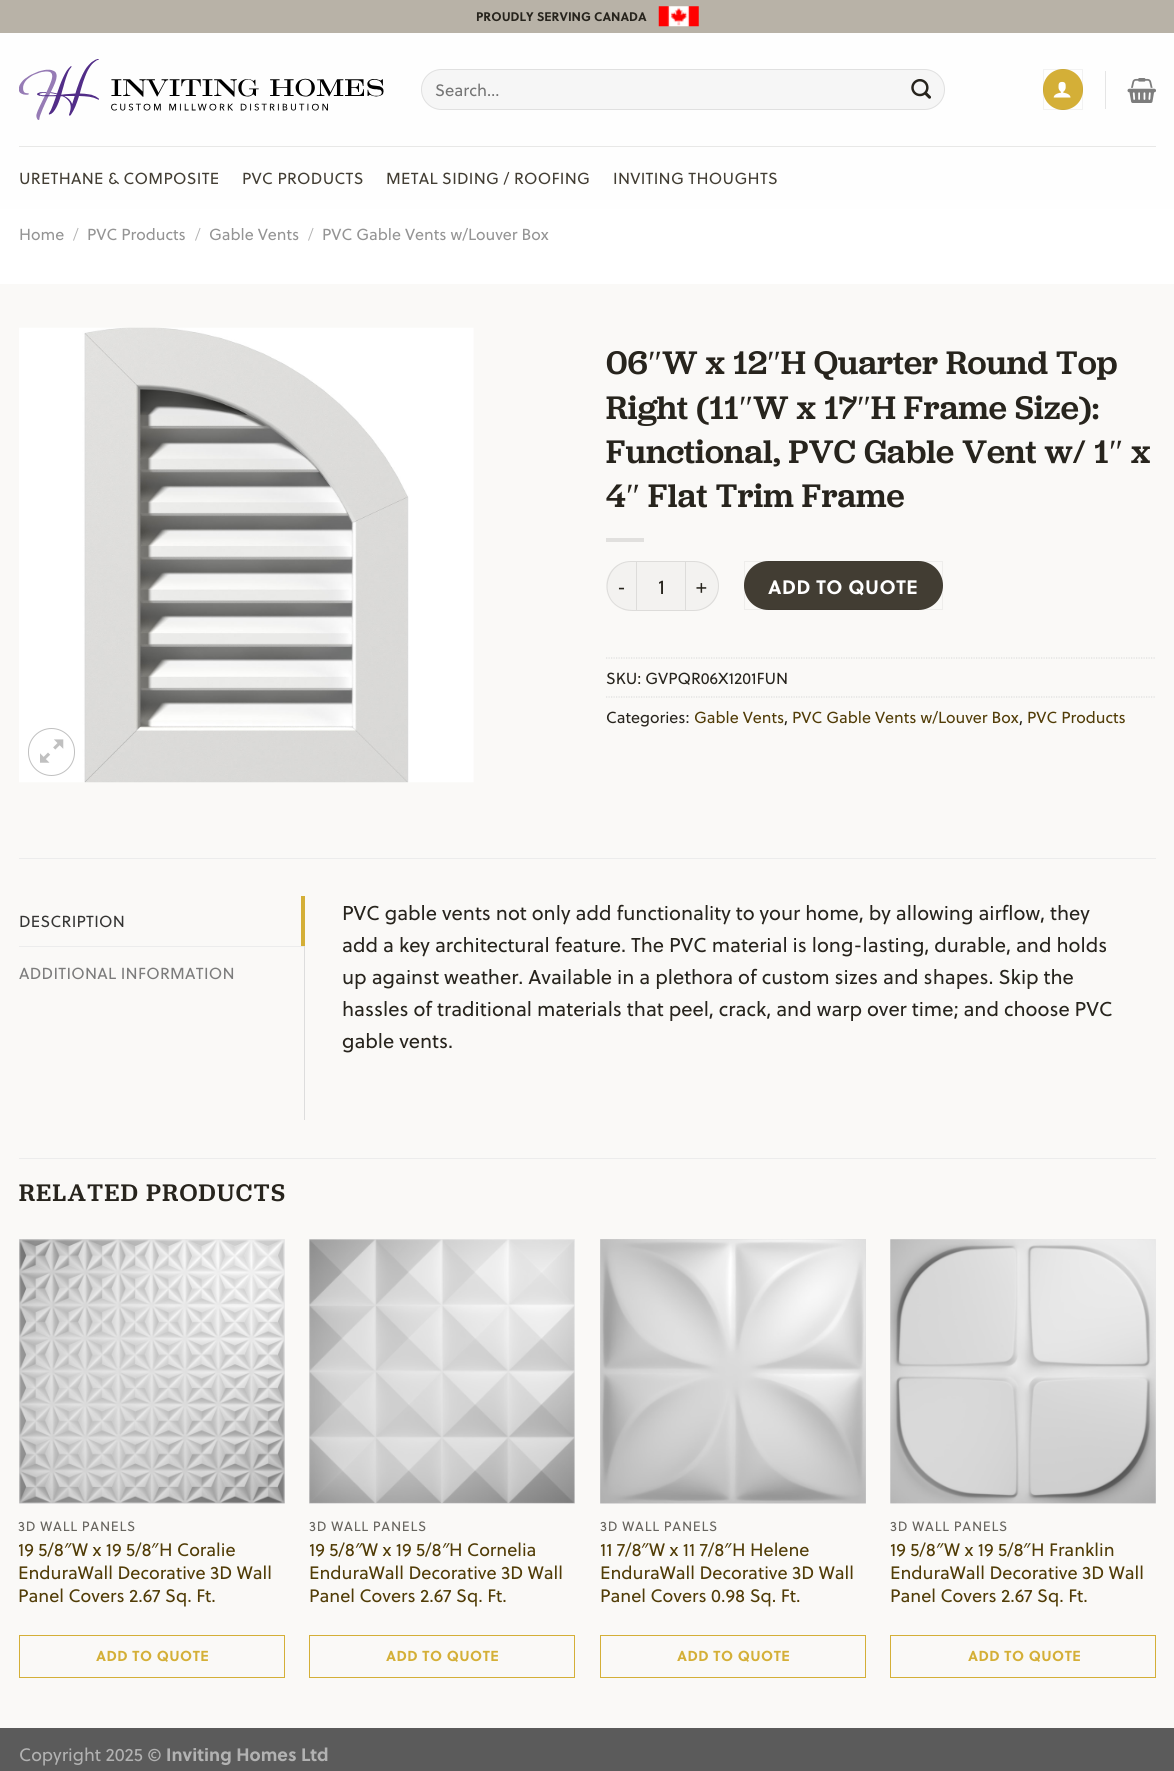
#include <cairo.h>
#include <math.h>
#include <stddef.h>

static cairo_t *c;
static void C(unsigned color){cairo_set_source_rgb(c, (color >> 16) / 255.0, (color >> 8 & 255) / 255.0, (color & 255) / 255.0);}
static void F(const char *family, double size, int italic, int bold){cairo_select_font_face(c, family, italic ? CAIRO_FONT_SLANT_ITALIC : CAIRO_FONT_SLANT_NORMAL,bold ? CAIRO_FONT_WEIGHT_BOLD : CAIRO_FONT_WEIGHT_NORMAL);cairo_set_font_size(c, size);}
static void T(double x, double y, const char *s){cairo_move_to(c, x, y);cairo_show_text(c, s);}
static void L(double x, double y, const char *s, double letter, double word){cairo_move_to(c, x, y);while (*s) {char ch[5] = {0};int n = 0;do ch[n++] = *s++; while ((*s & 0xC0) == 0x80);cairo_show_text(c, ch);cairo_rel_move_to(c, letter + word * (*ch == ' '), 0);}}
static void R(double x, double y, double w, double h){cairo_rectangle(c, x, y, w, h);cairo_fill(c);}
static void Q(double x, double y, double w, double h, double r){cairo_new_sub_path(c);cairo_arc(c, x + w - r, y + h - r, r, 0, M_PI / 2);cairo_arc(c, x + r, y + h - r, r, M_PI / 2, M_PI);cairo_arc(c, x + r, y + r, r, M_PI, 1.5 * M_PI);cairo_arc(c, x + w - r, y + r, r, 1.5 * M_PI, 2 * M_PI);cairo_close_path(c);}
static void I(const char *path, double x, double y, double w, double h){cairo_surface_t *image = cairo_image_surface_create_from_png(path);cairo_save(c);cairo_set_source_surface(c, image, x, y);cairo_rectangle(c, x, y, w, h);cairo_fill(c);cairo_restore(c);cairo_surface_destroy(image);}
int main(void) {
cairo_surface_t *surface = cairo_image_surface_create(CAIRO_FORMAT_RGB24, 1174, 1771);
c = cairo_create(surface);
cairo_font_options_t *options = cairo_font_options_create();
cairo_font_options_set_hint_metrics(options, CAIRO_HINT_METRICS_OFF);
cairo_font_options_set_hint_style(options, CAIRO_HINT_STYLE_NONE);
cairo_set_font_options(c, options);
cairo_set_miter_limit(c, 4);
C(0xfaf9f7);
cairo_paint(c);
C(0xb8b2a7);
R(0,0,1174,33);
F("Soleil",12.5,0,1);
C(0x27241d);
T(476,21,"PROUDLY SERVING CANADA");
I("1.png",658,6,41,21);
C(0xfefefe);
R(0,33,1174,176);
I("2.png",19,59,365,61);
C(0xf6f6f6);
Q(421,69,524,41,20.5);
cairo_fill(c);
Q(421.5,69.5,523,40,20);
cairo_set_source_rgba(c,0,0,0,0.09);
cairo_set_line_width(c,1);
cairo_stroke(c);
F("Soleil",16.5,0,0);
C(0x757575);
T(435,96,"Search…");
I("3.png",911,79,20,20);
C(0xd4af37);
Q(1043,69,40,41,20);
cairo_fill(c);
cairo_rectangle(c,1043.5,69.5,39,40);
cairo_set_source_rgba(c,0,0,0,0.05);
cairo_stroke(c);
I("4.png",1053,81,18,17);
C(0xe5e5e5);
R(1105,71,1,38);
I("5.png",1127,78,29,25);
C(0xe8e8e7);
R(19,146,1137,1);
F("Soleil",16,0,0);
C(0x423d33);
L(19,184,"URETHANE & COMPOSITE",.3,0);
L(242,184,"PVC PRODUCTS",.3,0);
L(386,184,"METAL SIDING / ROOFING",.3,0);
L(613,184,"INVITING THOUGHTS",.3,0);
C(0xffffff);
R(0,209,1174,75);
C(0x949494);
T(19,240,"Home");
F("Soleil Light",16,0,0);
C(0xb2b2b2);
T(73,240,"/");
F("Soleil",16,0,0);
C(0x949494);
T(87,240,"PVC Products");
F("Soleil Light",16,0,0);
C(0xb2b2b2);
T(195,240,"/");
F("Soleil",16,0,0);
C(0x949494);
T(209,240,"Gable Vents");
F("Soleil Light",16,0,0);
C(0xb2b2b2);
T(308,240,"/");
F("Soleil",16,0,0);
C(0x949494);
T(322,240,"PVC Gable Vents w/Louver Box");
I("6.png",19,327,455,456);
Q(28.5,728.5,46,47,23);
C(0xc0c0c0);
cairo_stroke(c);
I("7.png",40,739,24,24);
F("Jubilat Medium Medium",34,0,0);
C(0x27241d);
T(606,374,"06");
F("Liberation Serif",34,0,0);
T(648,374,"″");
F("Jubilat Medium Medium",34,0,0);
T(662,374,"W x 12");
F("Liberation Serif",34,0,0);
T(767,374,"″");
F("Jubilat Medium Medium",34,0,0);
T(781,374,"H Quarter Round Top");
T(606,419,"Right (11");
F("Liberation Serif",34,0,0);
T(739,419,"″");
F("Jubilat Medium Medium",34,0,0);
T(753,419,"W x 17");
F("Liberation Serif",34,0,0);
T(857,419,"″");
F("Jubilat Medium Medium",34,0,0);
T(871,419,"H Frame Size):");
T(606,463,"Functional, PVC Gable Vent w/ 1");
F("Liberation Serif",34,0,0);
T(1109,463,"″");
F("Jubilat Medium Medium",34,0,0);
T(1131,463,"x");
T(606,507,"4");
F("Liberation Serif",34,0,0);
T(626,507,"″");
F("Jubilat Medium Medium",34,0,0);
T(648,507,"Flat Trim Frame");
C(0xe1e0de);
R(606,538,38,4);
C(0xf3f2f0);
cairo_new_path(c);
cairo_move_to(c,631,561);
cairo_line_to(c,636,561);
cairo_line_to(c,636,611);
cairo_line_to(c,631,611);
cairo_curve_to(c,617,611,606,600,606,586);
cairo_curve_to(c,606,572,617,561,631,561);
cairo_close_path(c);
cairo_fill(c);
cairo_set_source_rgba(c,0,0,0,0.09);
cairo_set_fill_rule(c,CAIRO_FILL_RULE_EVEN_ODD);
cairo_new_path(c);
cairo_move_to(c,631,561);
cairo_line_to(c,636,561);
cairo_line_to(c,636,611);
cairo_curve_to(c,631,611,626,611,622,609);
cairo_curve_to(c,597,599,604,561,631,561);
cairo_close_path(c);
cairo_move_to(c,631,562);
cairo_line_to(c,636,562);
cairo_line_to(c,636,610);
cairo_curve_to(c,631,610,627,610,622,608);
cairo_curve_to(c,598,598,606,562,631,562);
cairo_close_path(c);
cairo_fill(c);
F("Soleil",19.5,0,0);
C(0x27241d);
L(617,594,"-",.5,0);
C(0xf3f2f0);
cairo_rectangle(c,636.5,561.5,49,49);
cairo_fill_preserve(c);
C(0xdddcda);
cairo_stroke(c);
F("Soleil",20,0,0);
C(0x27241d);
T(658,594,"1");
C(0xf3f2f0);
cairo_new_path(c);
cairo_move_to(c,686,561);
cairo_line_to(c,694,561);
cairo_curve_to(c,708,561,719,572,719,586);
cairo_curve_to(c,719,600,708,611,694,611);
cairo_line_to(c,686,611);
cairo_close_path(c);
cairo_fill(c);
cairo_set_source_rgba(c,0,0,0,0.09);
cairo_new_path(c);
cairo_move_to(c,686,561);
cairo_line_to(c,694,561);
cairo_curve_to(c,708,561,719,572,719,586);
cairo_curve_to(c,719,600,708,611,694,611);
cairo_line_to(c,686,611);
cairo_close_path(c);
cairo_move_to(c,686,562);
cairo_line_to(c,694,562);
cairo_curve_to(c,707,562,718,573,718,586);
cairo_curve_to(c,718,599,707,610,694,610);
cairo_line_to(c,686,610);
cairo_close_path(c);
cairo_fill(c);
F("Soleil",19.5,0,0);
C(0x27241d);
L(696,594,"+",.5,0);
C(0x423d33);
Q(744,561,199,49,24.5);
cairo_fill(c);
cairo_rectangle(c,744.5,561.5,198,48);
cairo_set_source_rgba(c,0,0,0,0.05);
cairo_stroke(c);
F("Soleil",19.5,0,1);
C(0xffffff);
L(768,594,"ADD TO QUOTE",.5,0);
cairo_new_path(c);
cairo_move_to(c,606,658);
cairo_line_to(c,1156,658);
C(0xdddddd);
cairo_set_line_width(c,1.2);
cairo_set_dash(c,(double[]){1.25,1.25},2,0);
cairo_stroke(c);
F("Soleil",16,0,0);
C(0x27241d);
T(606,684,"SKU: GVPQR06X1201FUN");
cairo_new_path(c);
cairo_move_to(c,606,697);
cairo_line_to(c,1156,697);
C(0xdddddd);
cairo_stroke(c);
C(0x27241d);
T(606,723,"Categories:");
C(0x513c06);
T(694,723,"Gable Vents");
C(0x27241d);
T(784,723,",");
C(0x513c06);
T(792,723,"PVC Gable Vents w/Louver Box");
C(0x27241d);
T(1019,723,",");
C(0x513c06);
T(1027,723,"PVC Products");
C(0xececec);
R(19,858,1137,1);
C(0x353534);
L(19,927,"DESCRIPTION",.3,0);
C(0xd4af37);
R(301,896,4,50);
C(0xececec);
R(19,946,285,1);
C(0x7c7c7c);
L(19,979,"ADDITIONAL INFORMATION",.3,0);
C(0xdddddd);
R(304,946,1,174);
F("Soleil",20,0,0);
C(0x27241d);
T(342,920,"PVC gable vents not only add functionality to your home, by allowing airflow, they");
T(342,952,"add a key architectural feature. The PVC material is long-lasting, durable, and holds");
T(342,984,"up against weather. Available in a plethora of custom sizes and shapes. Skip the");
T(342,1016,"hassles of traditional materials that peel, crack, and warp over time; and choose PVC");
T(342,1048,"gable vents.");
C(0xececec);
R(19,1158,1137,1);
F("Jubilat Medium Medium",25,0,0);
C(0x27241d);
L(19,1201,"RELATED PRODUCTS",1.25,0);
I("8.png",19,1239,266,265);
F("Soleil",13.5,0,0);
C(0x66645e);
L(18,1531,"3D WALL PANELS",.75,0);
F("Soleil",18,0,0);
C(0x513c06);
T(18,1556,"19 5/8");
F("Noto Sans",18,0,0);
T(64,1556,"″");
F("Soleil",18,0,0);
T(72,1556,"W x 19 5/8");
F("Noto Sans",18,0,0);
T(151,1556,"″");
F("Soleil",18,0,0);
T(159,1556,"H Coralie");
T(18,1579,"EnduraWall Decorative 3D Wall");
T(18,1602,"Panel Covers 2.67 Sq. Ft.");
cairo_rectangle(c,19.5,1635.5,265,42);
C(0xd4af37);
cairo_set_line_width(c,1);
cairo_set_dash(c,NULL,0,0);
cairo_stroke(c);
F("Soleil",14.5,0,1);
L(96,1661,"ADD TO QUOTE",.5,0);
I("9.png",309,1239,266,265);
F("Soleil",13.5,0,0);
C(0x66645e);
L(309,1531,"3D WALL PANELS",.75,0);
F("Soleil",18,0,0);
C(0x513c06);
T(309,1556,"19 5/8");
F("Noto Sans",18,0,0);
T(355,1556,"″");
F("Soleil",18,0,0);
T(362,1556,"W x 19 5/8");
F("Noto Sans",18,0,0);
T(442,1556,"″");
F("Soleil",18,0,0);
T(449,1556,"H Cornelia");
T(309,1579,"EnduraWall Decorative 3D Wall");
T(309,1602,"Panel Covers 2.67 Sq. Ft.");
cairo_rectangle(c,309.5,1635.5,265,42);
C(0xd4af37);
cairo_stroke(c);
F("Soleil",14.5,0,1);
L(386,1661,"ADD TO QUOTE",.5,0);
I("10.png",600,1239,266,265);
F("Soleil",13.5,0,0);
C(0x66645e);
L(600,1531,"3D WALL PANELS",.75,0);
F("Soleil",18,0,0);
C(0x513c06);
T(600,1556,"11 7/8");
F("Noto Sans",18,0,0);
T(641,1556,"″");
F("Soleil",18,0,0);
T(649,1556,"W x 11 7/8");
F("Noto Sans",18,0,0);
T(724,1556,"″");
F("Soleil",18,0,0);
T(732,1556,"H Helene");
T(600,1579,"EnduraWall Decorative 3D Wall");
T(600,1602,"Panel Covers 0.98 Sq. Ft.");
cairo_rectangle(c,600.5,1635.5,265,42);
C(0xd4af37);
cairo_stroke(c);
F("Soleil",14.5,0,1);
L(677,1661,"ADD TO QUOTE",.5,0);
I("11.png",890,1239,266,265);
F("Soleil",13.5,0,0);
C(0x66645e);
L(890,1531,"3D WALL PANELS",.75,0);
F("Soleil",18,0,0);
C(0x513c06);
T(890,1556,"19 5/8");
F("Noto Sans",18,0,0);
T(936,1556,"″");
F("Soleil",18,0,0);
T(944,1556,"W x 19 5/8");
F("Noto Sans",18,0,0);
T(1023,1556,"″");
F("Soleil",18,0,0);
T(1031,1556,"H Franklin");
T(890,1579,"EnduraWall Decorative 3D Wall");
T(890,1602,"Panel Covers 2.67 Sq. Ft.");
cairo_rectangle(c,890.5,1635.5,265,42);
C(0xd4af37);
cairo_stroke(c);
F("Soleil",14.5,0,1);
L(968,1661,"ADD TO QUOTE",.5,0);
C(0x5b5b5b);
R(0,1728,1174,43);
F("Soleil",18,0,0);
C(0xb2b2b2);
T(19,1761,"Copyright 2025 ©");
F("Soleil",18,0,1);
T(166,1761,"Inviting Homes Ltd");
cairo_surface_write_to_png(surface, "o.png");
cairo_font_options_destroy(options);
cairo_destroy(c);
cairo_surface_destroy(surface);
return 0;
}
